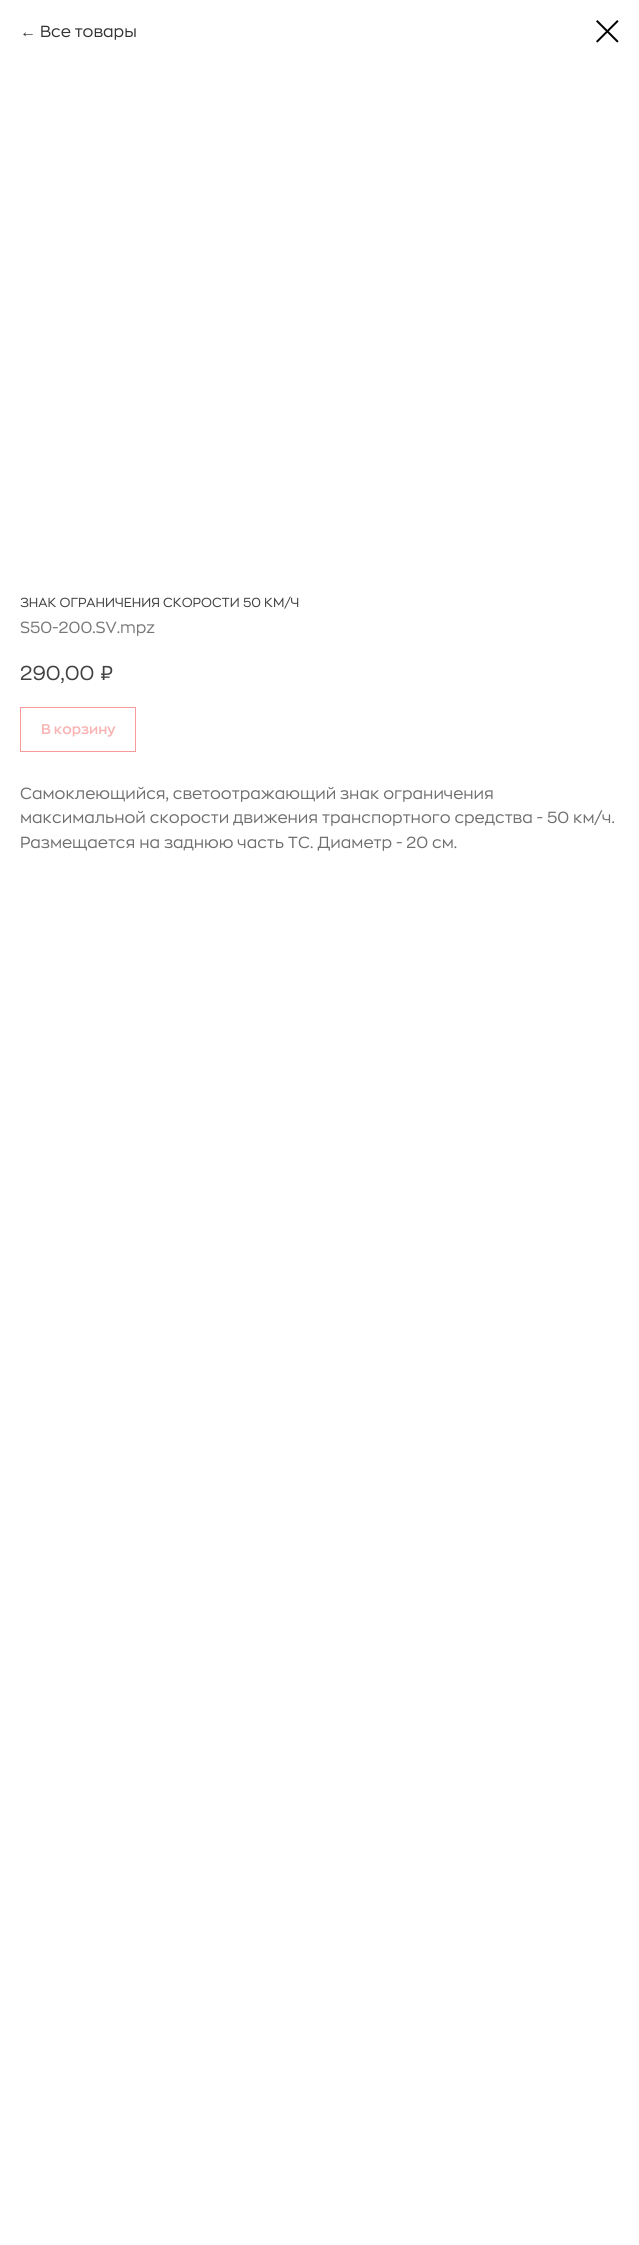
#include <cairo.h>
#include <math.h>
#include <stddef.h>

static cairo_t *c;
static void C(unsigned color){cairo_set_source_rgb(c, (color >> 16) / 255.0, (color >> 8 & 255) / 255.0, (color & 255) / 255.0);}
static void F(const char *family, double size, int italic, int bold){cairo_select_font_face(c, family, italic ? CAIRO_FONT_SLANT_ITALIC : CAIRO_FONT_SLANT_NORMAL,bold ? CAIRO_FONT_WEIGHT_BOLD : CAIRO_FONT_WEIGHT_NORMAL);cairo_set_font_size(c, size);}
static void T(double x, double y, const char *s){cairo_move_to(c, x, y);cairo_show_text(c, s);}
static void I(const char *path, double x, double y, double w, double h){cairo_surface_t *image = cairo_image_surface_create_from_png(path);cairo_save(c);cairo_set_source_surface(c, image, x, y);cairo_rectangle(c, x, y, w, h);cairo_fill(c);cairo_restore(c);cairo_surface_destroy(image);}
int main(void) {
cairo_surface_t *surface = cairo_image_surface_create(CAIRO_FORMAT_RGB24, 639, 2245);
c = cairo_create(surface);
cairo_font_options_t *options = cairo_font_options_create();
cairo_font_options_set_hint_metrics(options, CAIRO_HINT_METRICS_OFF);
cairo_font_options_set_hint_style(options, CAIRO_HINT_STYLE_NONE);
cairo_set_font_options(c, options);
cairo_set_miter_limit(c, 4);
C(0xffffff);
cairo_paint(c);
F("Liberation Sans",16,0,0);
C(0x333333);
T(20,37,"←");
F("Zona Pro",16,0,0);
T(40,37,"Все товары");
I("1.png",596,20,23,23);
F("Zona Pro",13,0,0);
C(0x414141);
T(20,607,"ЗНАК ОГРАНИЧЕНИЯ СКОРОСТИ 50 КМ/Ч");
F("Zona Pro",16,0,0);
C(0x777777);
T(20,633,"S50-200.SV.mpz");
F("Zona Pro",20,0,0);
C(0x414141);
T(20,680,"290,00");
T(100,680,"₽");
cairo_rectangle(c,20.5,707.5,115,44);
C(0xf79a9a);
cairo_set_line_width(c,1);
cairo_stroke(c);
F("Zona Pro SemiBold",14,0,0);
C(0xf9b3b3);
T(41,734,"В корзину");
F("Zona Pro",16,0,0);
C(0x6f6f6f);
T(20,799,"Самоклеющийся, светоотражающий знак ограничения");
T(20,823,"максимальной скорости движения транспортного средства - 50 км/ч.");
T(20,848,"Размещается на заднюю часть ТС. Диаметр - 20 см.");
cairo_surface_write_to_png(surface, "o.png");
cairo_font_options_destroy(options);
cairo_destroy(c);
cairo_surface_destroy(surface);
return 0;
}
